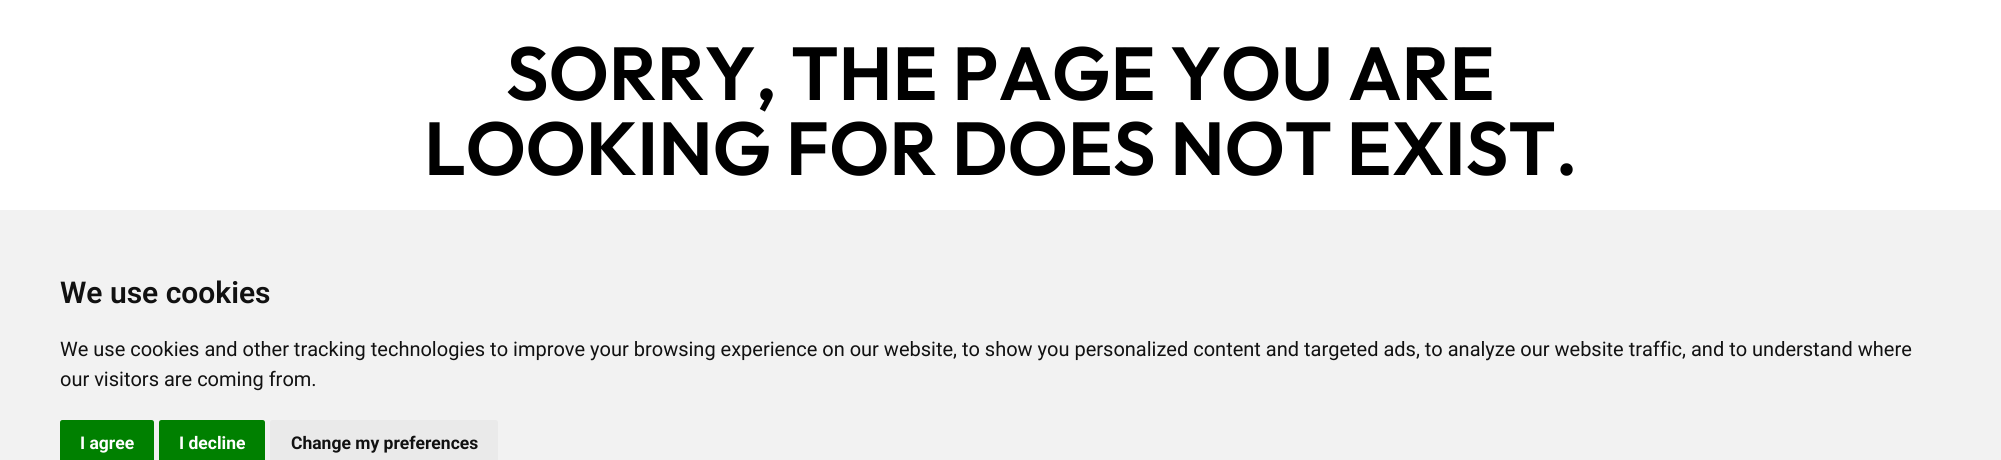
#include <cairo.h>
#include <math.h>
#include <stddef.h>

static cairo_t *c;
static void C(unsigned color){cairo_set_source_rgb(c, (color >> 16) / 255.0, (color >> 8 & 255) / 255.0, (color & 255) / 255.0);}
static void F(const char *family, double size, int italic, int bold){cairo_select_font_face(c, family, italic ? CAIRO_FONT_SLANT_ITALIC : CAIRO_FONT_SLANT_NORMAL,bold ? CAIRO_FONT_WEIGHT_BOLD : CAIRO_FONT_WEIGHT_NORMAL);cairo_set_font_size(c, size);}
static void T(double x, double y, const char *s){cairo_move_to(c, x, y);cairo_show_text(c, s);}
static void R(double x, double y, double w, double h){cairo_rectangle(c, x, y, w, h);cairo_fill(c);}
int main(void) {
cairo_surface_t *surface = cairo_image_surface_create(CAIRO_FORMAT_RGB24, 2001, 460);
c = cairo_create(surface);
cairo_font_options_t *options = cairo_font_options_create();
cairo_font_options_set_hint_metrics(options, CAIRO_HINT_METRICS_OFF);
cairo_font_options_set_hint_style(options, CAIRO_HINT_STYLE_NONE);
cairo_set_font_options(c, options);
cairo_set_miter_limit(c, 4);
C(0xffffff);
cairo_paint(c);
F("Outfit SemiBold",75,0,0);
C(0x000000);
T(506,100,"SORRY, THE PAGE YOU ARE");
T(424,175,"LOOKING FOR DOES NOT EXIST.");
C(0xf2f2f2);
R(0,210,2001,250);
F("Roboto SemiBold",30,0,0);
C(0x111111);
T(60,303,"We use cookies");
F("Roboto",20,0,0);
T(60,356,"We use cookies and other tracking technologies to improve your browsing experience on our website, to show you personalized content and targeted ads, to analyze our website traffic, and to understand where");
T(60,386,"our visitors are coming from.");
C(0x008000);
cairo_new_path(c);
cairo_move_to(c,62.5,420);
cairo_line_to(c,151.5,420);
cairo_curve_to(c,153,420,154,421,154,422.5);
cairo_line_to(c,154,460);
cairo_line_to(c,60,460);
cairo_line_to(c,60,422.5);
cairo_curve_to(c,60,421,61,420,62.5,420);
cairo_close_path(c);
cairo_fill(c);
F("Roboto",17.5,0,1);
C(0xffffff);
T(80,449,"I agree");
C(0x008000);
cairo_new_path(c);
cairo_move_to(c,161.5,420);
cairo_line_to(c,262.5,420);
cairo_curve_to(c,264,420,265,421,265,422.5);
cairo_line_to(c,265,460);
cairo_line_to(c,159,460);
cairo_line_to(c,159,422.5);
cairo_curve_to(c,159,421,160,420,161.5,420);
cairo_close_path(c);
cairo_fill(c);
C(0xffffff);
T(179,449,"I decline");
C(0xeaeaea);
cairo_new_path(c);
cairo_move_to(c,272.5,420);
cairo_line_to(c,495.5,420);
cairo_curve_to(c,497,420,498,421,498,422.5);
cairo_line_to(c,498,460);
cairo_line_to(c,270,460);
cairo_line_to(c,270,422.5);
cairo_curve_to(c,270,421,271,420,272.5,420);
cairo_close_path(c);
cairo_fill(c);
C(0x111111);
T(291,449,"Change my preferences");
cairo_surface_write_to_png(surface, "o.png");
cairo_font_options_destroy(options);
cairo_destroy(c);
cairo_surface_destroy(surface);
return 0;
}
